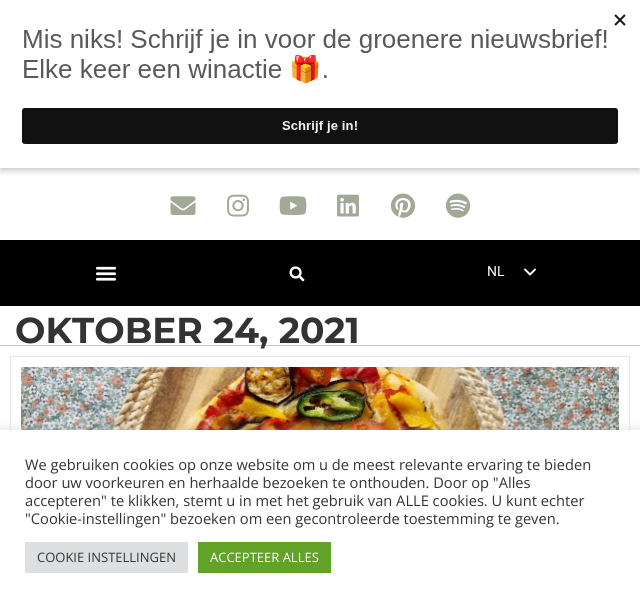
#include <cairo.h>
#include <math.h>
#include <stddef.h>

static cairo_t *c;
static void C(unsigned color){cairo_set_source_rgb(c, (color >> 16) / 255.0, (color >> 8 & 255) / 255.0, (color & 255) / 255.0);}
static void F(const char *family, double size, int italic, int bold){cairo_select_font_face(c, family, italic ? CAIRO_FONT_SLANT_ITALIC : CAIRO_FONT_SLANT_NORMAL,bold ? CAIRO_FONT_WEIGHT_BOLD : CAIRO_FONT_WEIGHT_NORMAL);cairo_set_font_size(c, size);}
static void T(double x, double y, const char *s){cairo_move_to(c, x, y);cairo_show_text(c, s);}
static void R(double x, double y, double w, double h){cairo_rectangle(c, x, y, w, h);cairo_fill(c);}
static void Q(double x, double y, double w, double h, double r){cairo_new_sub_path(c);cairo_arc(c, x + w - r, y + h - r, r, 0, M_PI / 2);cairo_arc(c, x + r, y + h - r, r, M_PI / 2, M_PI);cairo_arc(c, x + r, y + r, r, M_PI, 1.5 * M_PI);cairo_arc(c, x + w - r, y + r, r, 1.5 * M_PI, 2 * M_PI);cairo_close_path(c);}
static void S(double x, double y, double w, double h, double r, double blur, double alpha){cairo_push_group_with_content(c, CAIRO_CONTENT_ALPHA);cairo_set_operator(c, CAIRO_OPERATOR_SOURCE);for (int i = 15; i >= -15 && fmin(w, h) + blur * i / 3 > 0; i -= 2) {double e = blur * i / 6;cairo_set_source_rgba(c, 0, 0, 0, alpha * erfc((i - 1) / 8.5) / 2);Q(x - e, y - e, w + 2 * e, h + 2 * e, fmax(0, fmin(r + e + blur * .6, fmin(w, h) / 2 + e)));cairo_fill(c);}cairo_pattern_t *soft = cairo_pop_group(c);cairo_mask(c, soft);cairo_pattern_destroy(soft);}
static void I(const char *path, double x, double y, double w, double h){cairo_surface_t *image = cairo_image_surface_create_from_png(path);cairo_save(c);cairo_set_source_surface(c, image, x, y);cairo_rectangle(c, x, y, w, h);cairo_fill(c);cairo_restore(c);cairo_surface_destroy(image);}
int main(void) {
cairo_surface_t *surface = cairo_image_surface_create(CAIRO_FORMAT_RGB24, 640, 603);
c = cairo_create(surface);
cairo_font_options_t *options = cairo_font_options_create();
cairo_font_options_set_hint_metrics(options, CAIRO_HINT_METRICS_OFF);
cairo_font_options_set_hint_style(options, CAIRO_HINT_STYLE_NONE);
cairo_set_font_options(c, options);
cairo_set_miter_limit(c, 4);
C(0xffffff);
cairo_paint(c);
C(0x000000);
S(0,3,640,168,0,3,.2);
C(0xffffff);
R(0,0,640,168);
I("1.png",22,14,604,130);
I("2.png",170,196,26,19);
I("3.png",227,194,22,23);
I("4.png",279,196,28,19);
I("5.png",337,194,22,23);
I("6.png",390,193,26,25);
I("7.png",445,193,26,25);
C(0x000000);
R(0,240,640,66);
I("8.png",95,266,22,15);
I("9.png",289,266,16,16);
F("Roboto",14,0,0);
C(0xffffff);
T(487,276,"NL");
cairo_new_path(c);
cairo_move_to(c,525,269.5);
cairo_line_to(c,530,274.5);
cairo_line_to(c,535,269.5);
cairo_set_line_width(c,1.9);
cairo_set_line_cap(c,CAIRO_LINE_CAP_ROUND);
cairo_set_line_join(c,CAIRO_LINE_JOIN_ROUND);
cairo_stroke(c);
C(0xc2c5ba);
R(0,345,640,1);
F("Montserrat",36,0,1);
C(0x333333);
T(15,343,"OKTOBER 24, 2021");
cairo_rectangle(c,10.5,356.5,619,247);
C(0xe6e6e6);
cairo_set_line_width(c,1);
cairo_set_line_cap(c,CAIRO_LINE_CAP_BUTT);
cairo_set_line_join(c,CAIRO_LINE_JOIN_MITER);
cairo_stroke(c);
I("10.png",21,367,598,63);
C(0xacabab);
S(0,429,640,173,0,5,.3);
C(0xffffff);
R(0,430,640,173);
F("Open Sans",14.65,0,0);
C(0x333333);
T(25,470,"We gebruiken cookies op onze website om u de meest relevante ervaring te bieden");
T(25,488,"door uw voorkeuren en herhaalde bezoeken te onthouden. Door op \"Alles");
T(25,506,"accepteren\" te klikken, stemt u in met het gebruik van ALLE cookies. U kunt echter");
T(25,524,"\"Cookie-instellingen\" bezoeken om een gecontroleerde toestemming te geven.");
C(0xdedfe0);
R(25,542,163,31);
F("Open Sans",13,0,0);
C(0x333333);
T(37,562,"COOKIE INSTELLINGEN");
C(0x61a229);
R(198,542,133,31);
C(0xffffff);
T(210,562,"ACCEPTEER ALLES");
cairo_surface_write_to_png(surface, "o.png");
cairo_font_options_destroy(options);
cairo_destroy(c);
cairo_surface_destroy(surface);
return 0;
}
